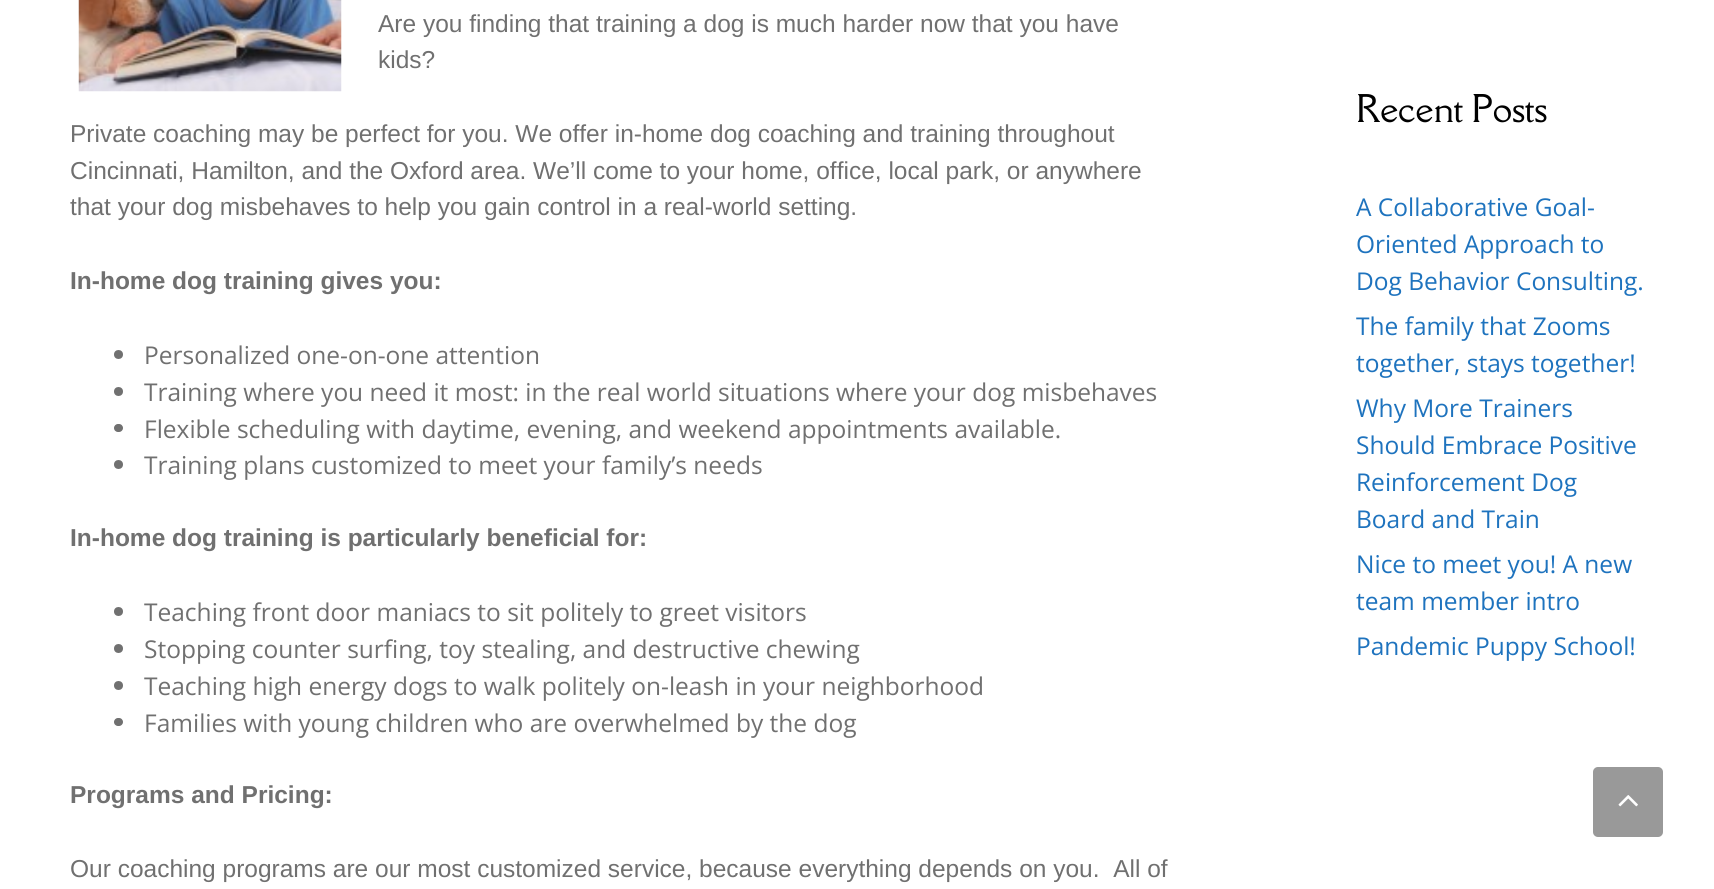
#include <cairo.h>
#include <math.h>
#include <stddef.h>

static cairo_t *c;
static void C(unsigned color){cairo_set_source_rgb(c, (color >> 16) / 255.0, (color >> 8 & 255) / 255.0, (color & 255) / 255.0);}
static void F(const char *family, double size, int italic, int bold){cairo_select_font_face(c, family, italic ? CAIRO_FONT_SLANT_ITALIC : CAIRO_FONT_SLANT_NORMAL,bold ? CAIRO_FONT_WEIGHT_BOLD : CAIRO_FONT_WEIGHT_NORMAL);cairo_set_font_size(c, size);}
static void T(double x, double y, const char *s){cairo_move_to(c, x, y);cairo_show_text(c, s);}
static void Q(double x, double y, double w, double h, double r){cairo_new_sub_path(c);cairo_arc(c, x + w - r, y + h - r, r, 0, M_PI / 2);cairo_arc(c, x + r, y + h - r, r, M_PI / 2, M_PI);cairo_arc(c, x + r, y + r, r, M_PI, 1.5 * M_PI);cairo_arc(c, x + w - r, y + r, r, 1.5 * M_PI, 2 * M_PI);cairo_close_path(c);}
static void I(const char *path, double x, double y, double w, double h){cairo_surface_t *image = cairo_image_surface_create_from_png(path);cairo_save(c);cairo_set_source_surface(c, image, x, y);cairo_rectangle(c, x, y, w, h);cairo_fill(c);cairo_restore(c);cairo_surface_destroy(image);}
int main(void) {
cairo_surface_t *surface = cairo_image_surface_create(CAIRO_FORMAT_RGB24, 1714, 889);
c = cairo_create(surface);
cairo_font_options_t *options = cairo_font_options_create();
cairo_font_options_set_hint_metrics(options, CAIRO_HINT_METRICS_OFF);
cairo_font_options_set_hint_style(options, CAIRO_HINT_STYLE_NONE);
cairo_set_font_options(c, options);
cairo_set_miter_limit(c, 4);
C(0xffffff);
cairo_paint(c);
I("1.png",78,0,264,92);
F("Liberation Sans",24.5,0,0);
C(0x707070);
T(378,32,"Are you finding that training a dog is much harder now that you have");
T(378,68,"kids?");
T(70,142,"Private coaching may be perfect for you. We offer in-home dog coaching and training throughout");
T(70,179,"Cincinnati, Hamilton, and the Oxford area. We’ll come to your home, office, local park, or anywhere");
T(70,215,"that your dog misbehaves to help you gain control in a real-world setting.");
F("Liberation Sans",24.5,0,1);
T(70,289,"In-home dog training gives you:");
cairo_new_path(c);
cairo_arc(c,118.5,354.5,4.5,0,2 * M_PI);
cairo_fill(c);
F("Open Sans",24.5,0,0);
T(144,364,"Personalized one-on-one attention");
cairo_new_path(c);
cairo_arc(c,118.5,391.5,4.5,0,2 * M_PI);
cairo_fill(c);
T(144,401,"Training where you need it most: in the real world situations where your dog misbehaves");
Q(114,424,9,8,4);
cairo_fill(c);
T(144,438,"Flexible scheduling with daytime, evening, and weekend appointments available.");
cairo_new_path(c);
cairo_arc(c,118.5,464.5,4.5,0,2 * M_PI);
cairo_fill(c);
T(144,474,"Training plans customized to meet your family’s needs");
F("Liberation Sans",24.5,0,1);
T(70,546,"In-home dog training is particularly beneficial for:");
cairo_new_path(c);
cairo_arc(c,118.5,611.5,4.5,0,2 * M_PI);
cairo_fill(c);
F("Open Sans",24.5,0,0);
T(144,621,"Teaching front door maniacs to sit politely to greet visitors");
cairo_new_path(c);
cairo_arc(c,118.5,648.5,4.5,0,2 * M_PI);
cairo_fill(c);
T(144,658,"Stopping counter surfing, toy stealing, and destructive chewing");
cairo_new_path(c);
cairo_arc(c,118.5,685.5,4.5,0,2 * M_PI);
cairo_fill(c);
T(144,695,"Teaching high energy dogs to walk politely on-leash in your neighborhood");
Q(114,718,9,8,4);
cairo_fill(c);
T(144,732,"Families with young children who are overwhelmed by the dog");
F("Liberation Sans",24.5,0,1);
T(70,803,"Programs and Pricing:");
F("Liberation Sans",24.5,0,0);
T(70,877,"Our coaching programs are our most customized service, because everything depends on you.  All of");
F("Della Respira",35,0,0);
C(0x000000);
T(1356,122,"Recent Posts");
F("Open Sans",24.5,0,0);
C(0x1e73be);
T(1356,216,"A Collaborative Goal-");
T(1356,253,"Oriented Approach to");
T(1356,290,"Dog Behavior Consulting.");
T(1356,335,"The family that Zooms");
T(1356,372,"together, stays together!");
T(1356,417,"Why More Trainers");
T(1356,454,"Should Embrace Positive");
T(1356,491,"Reinforcement Dog");
T(1356,528,"Board and Train");
T(1356,573,"Nice to meet you! A new");
T(1356,610,"team member intro");
T(1356,655,"Pandemic Puppy School!");
C(0x999999);
Q(1593,767,70,70,5);
cairo_fill(c);
I("2.png",1618,795,20,12);
cairo_surface_write_to_png(surface, "o.png");
cairo_font_options_destroy(options);
cairo_destroy(c);
cairo_surface_destroy(surface);
return 0;
}
